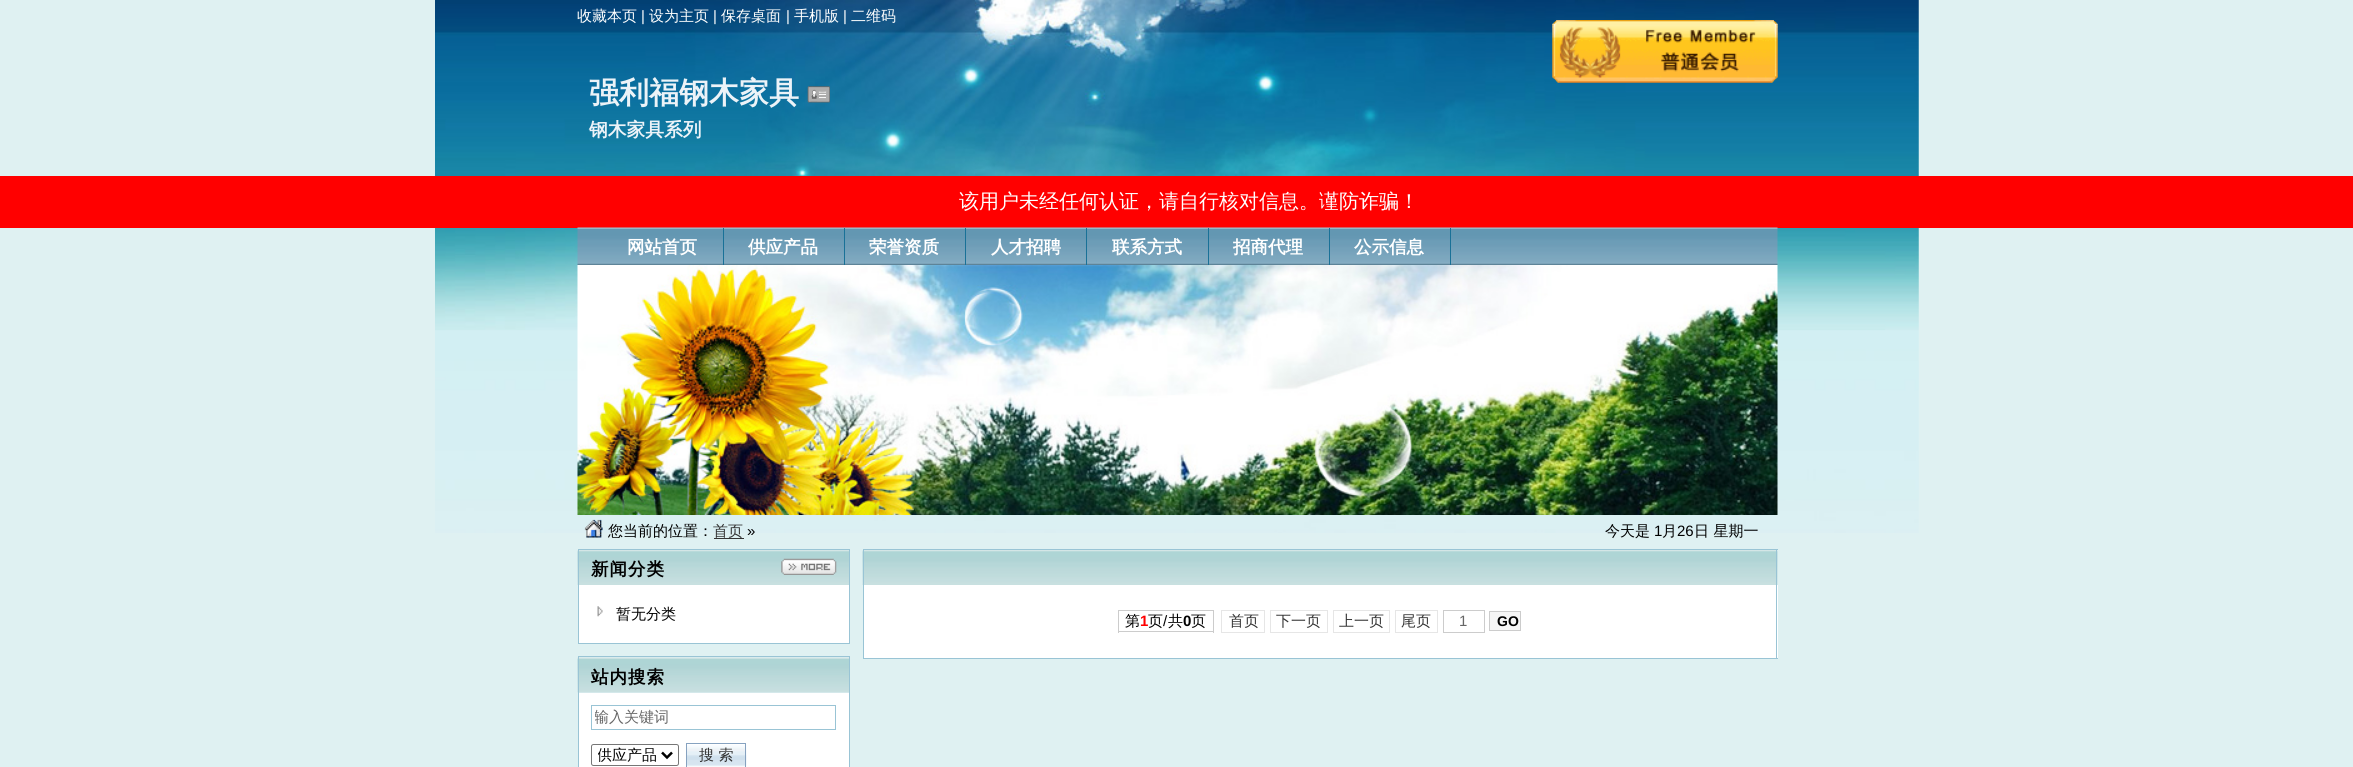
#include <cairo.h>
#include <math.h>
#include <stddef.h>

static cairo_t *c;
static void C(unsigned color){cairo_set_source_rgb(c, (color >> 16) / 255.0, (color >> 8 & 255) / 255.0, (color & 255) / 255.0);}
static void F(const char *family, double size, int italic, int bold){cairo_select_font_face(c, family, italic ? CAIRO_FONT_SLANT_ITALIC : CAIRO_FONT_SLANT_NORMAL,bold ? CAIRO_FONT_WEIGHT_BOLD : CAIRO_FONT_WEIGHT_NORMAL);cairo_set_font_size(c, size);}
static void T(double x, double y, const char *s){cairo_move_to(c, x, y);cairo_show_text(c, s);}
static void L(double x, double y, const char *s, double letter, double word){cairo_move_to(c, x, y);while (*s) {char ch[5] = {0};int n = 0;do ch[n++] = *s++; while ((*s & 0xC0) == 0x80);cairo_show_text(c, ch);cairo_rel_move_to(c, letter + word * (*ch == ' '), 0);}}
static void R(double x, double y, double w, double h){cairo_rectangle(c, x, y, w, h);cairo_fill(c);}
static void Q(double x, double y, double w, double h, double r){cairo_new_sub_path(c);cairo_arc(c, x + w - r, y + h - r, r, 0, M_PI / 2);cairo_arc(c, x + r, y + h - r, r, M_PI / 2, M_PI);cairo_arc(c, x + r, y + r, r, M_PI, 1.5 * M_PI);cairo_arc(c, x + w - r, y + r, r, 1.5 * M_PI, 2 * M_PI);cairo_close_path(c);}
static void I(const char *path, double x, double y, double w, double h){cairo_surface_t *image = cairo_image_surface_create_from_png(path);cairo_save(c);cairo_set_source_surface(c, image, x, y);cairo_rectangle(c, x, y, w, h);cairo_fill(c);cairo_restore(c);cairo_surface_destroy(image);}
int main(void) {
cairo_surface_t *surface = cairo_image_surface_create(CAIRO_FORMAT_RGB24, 2353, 767);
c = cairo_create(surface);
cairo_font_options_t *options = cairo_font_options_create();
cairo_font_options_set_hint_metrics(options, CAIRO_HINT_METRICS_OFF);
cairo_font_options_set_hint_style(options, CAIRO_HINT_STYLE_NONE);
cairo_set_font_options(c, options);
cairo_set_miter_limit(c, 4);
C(0xdff1f2);
cairo_paint(c);
I("1.png",435,0,1484,533);
F("WenQuanYi Zen Hei Medium",15,0,0);
C(0xffffff);
T(577,21,"收藏本页");
F("Liberation Sans",15,0,0);
T(641,21,"|");
F("WenQuanYi Zen Hei Medium",15,0,0);
T(649,21,"设为主页");
F("Liberation Sans",15,0,0);
T(713,21,"|");
F("WenQuanYi Zen Hei Medium",15,0,0);
T(721,21,"保存桌面");
F("Liberation Sans",15,0,0);
T(786,21,"|");
F("WenQuanYi Zen Hei Medium",15,0,0);
T(794,21,"手机版");
F("Liberation Sans",15,0,0);
T(843,21,"|");
F("WenQuanYi Zen Hei Medium",15,0,0);
T(851,21,"二维码");
I("2.png",1552,20,226,63);
I("3.png",1552,20,226,63);
F("WenQuanYi Zen Hei",30,0,1);
C(0xecf3f8);
T(589,103,"强利福钢木家具");
I("4.png",807,86,23,17);
F("WenQuanYi Zen Hei",18.75,0,1);
T(589,136,"钢木家具系列");
C(0xff0000);
R(0,176,2353,52);
F("WenQuanYi Zen Hei Medium",20,0,0);
C(0xffffff);
T(959,208,"该用户未经任何认证，请自行核对信息。谨防诈骗！");
I("5.png",577,227,1201,38);
C(0x197197);
R(723,228,1,37);
F("WenQuanYi Zen Hei",17.5,0,1);
C(0xffffff);
T(627,253,"网站首页");
C(0x197197);
R(844,228,1,37);
C(0xffffff);
T(748,253,"供应产品");
C(0x197197);
R(965,228,1,37);
C(0xffffff);
T(869,253,"荣誉资质");
C(0x197197);
R(1086,228,1,37);
C(0xffffff);
T(991,253,"人才招聘");
C(0x197197);
R(1208,228,1,37);
C(0xffffff);
T(1112,253,"联系方式");
C(0x197197);
R(1329,228,1,37);
C(0xffffff);
T(1233,253,"招商代理");
C(0x197197);
R(1450,228,1,37);
C(0xffffff);
T(1354,253,"公示信息");
I("6.png",577,265,1201,250);
I("7.png",584,519,19,19);
F("WenQuanYi Zen Hei Medium",15,0,0);
C(0x000000);
T(608,536,"您当前的位置：");
C(0x333333);
R(714,538,30,1);
T(713,536,"首页");
F("Liberation Sans",15,0,0);
C(0x000000);
T(747,536,"»");
F("WenQuanYi Zen Hei Medium",15,0,0);
T(1605,536,"今天是");
F("Liberation Sans",15,0,0);
T(1654,536,"1");
F("WenQuanYi Zen Hei Medium",15,0,0);
T(1662,536,"月");
F("Liberation Sans",15,0,0);
T(1677,536,"26");
F("WenQuanYi Zen Hei Medium",15,0,0);
T(1694,536,"日 星期一");
I("8.png",577,550,272,35);
C(0x99c4d5);
R(578,549,272,1);
R(849,549,1,95);
R(578,549,1,36);
F("WenQuanYi Zen Hei",17.5,0,1);
C(0x000000);
L(591,575,"新闻分类",1,0);
I("9.png",781,558,56,17);
C(0xffffff);
R(579,585,270,58);
C(0x99c4d5);
R(578,643,272,1);
R(578,585,1,59);
I("10.png",597,606,6,11);
F("WenQuanYi Zen Hei Medium",15,0,0);
C(0x000000);
T(616,619,"暂无分类");
I("11.png",577,657,272,36);
C(0x99c4d5);
R(578,656,272,1);
R(849,656,1,111);
R(578,656,1,111);
F("WenQuanYi Zen Hei",17.5,0,1);
C(0x000000);
L(591,683,"站内搜索",1,0);
C(0xffffff);
R(579,693,270,74);
cairo_rectangle(c,591.5,705.5,244,24);
C(0x99c4d5);
cairo_set_line_width(c,1);
cairo_stroke(c);
cairo_save(c);
cairo_rectangle(c,595,708,238,21);
cairo_clip(c);
F("WenQuanYi Zen Hei Medium",15,0,0);
C(0x666666);
T(594,722,"输入关键词");
cairo_restore(c);
Q(591.5,744.5,87,21,2);
C(0x767676);
cairo_stroke(c);
cairo_new_path(c);
cairo_move_to(c,662,752.5);
cairo_line_to(c,667,757.5);
cairo_line_to(c,672,752.5);
C(0x000000);
cairo_set_line_width(c,2.5);
cairo_stroke(c);
cairo_save(c);
cairo_rectangle(c,598,745,60,20);
cairo_clip(c);
F("WenQuanYi Zen Hei Medium",15,0,0);
T(597,760,"供应产品");
cairo_restore(c);
I("12.png",687,745,60,22);
cairo_rectangle(c,686.5,743.5,59,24);
C(0x86a2c0);
cairo_set_line_width(c,1);
cairo_stroke(c);
F("WenQuanYi Zen Hei Medium",15,0,0);
C(0x333333);
T(699,760,"搜 索");
I("13.png",862,550,916,35);
C(0x99c4d5);
R(863,549,915,1);
R(1776,549,1,36);
R(863,549,1,36);
C(0xffffff);
R(864,585,914,73);
C(0x99c4d5);
R(1776,585,1,74);
R(863,658,915,1);
R(863,585,1,74);
C(0x000000);
T(1125,626,"第");
C(0xcccccc);
R(1118,610,96,1);
R(1118,631,73,1);
R(1118,610,1,23);
F("Liberation Sans",15,0,1);
C(0xff0000);
T(1140,626,"1");
F("WenQuanYi Zen Hei Medium",15,0,0);
C(0x000000);
T(1148,626,"页");
F("Liberation Sans",15,0,0);
T(1163,626,"/");
F("WenQuanYi Zen Hei Medium",15,0,0);
T(1168,626,"共");
F("Liberation Sans",15,0,1);
T(1183,626,"0");
F("WenQuanYi Zen Hei Medium",15,0,0);
T(1191,626,"页");
C(0xcccccc);
R(1213,610,1,23);
R(1191,631,23,1);
cairo_rectangle(c,1221.5,610.5,43,22);
C(0xe6e6e6);
cairo_stroke(c);
C(0x333333);
T(1229,626,"首页");
cairo_rectangle(c,1270.5,610.5,57,22);
C(0xe6e6e6);
cairo_stroke(c);
C(0x333333);
T(1276,626,"下一页");
cairo_rectangle(c,1333.5,610.5,56,22);
C(0xe6e6e6);
cairo_stroke(c);
C(0x333333);
T(1339,626,"上一页");
cairo_rectangle(c,1395.5,610.5,42,22);
C(0xe6e6e6);
cairo_stroke(c);
C(0x333333);
T(1401,626,"尾页");
cairo_rectangle(c,1443.5,610.5,41,22);
C(0xcccccc);
cairo_stroke(c);
F("Liberation Sans",15,0,0);
C(0x666666);
T(1459,626,"1");
C(0xf6f6f6);
cairo_rectangle(c,1489.5,611.5,31,19);
cairo_fill_preserve(c);
C(0xcccccc);
cairo_stroke(c);
F("Liberation Sans",14,0,1);
C(0x000000);
T(1497,626,"GO");
cairo_surface_write_to_png(surface, "o.png");
cairo_font_options_destroy(options);
cairo_destroy(c);
cairo_surface_destroy(surface);
return 0;
}
